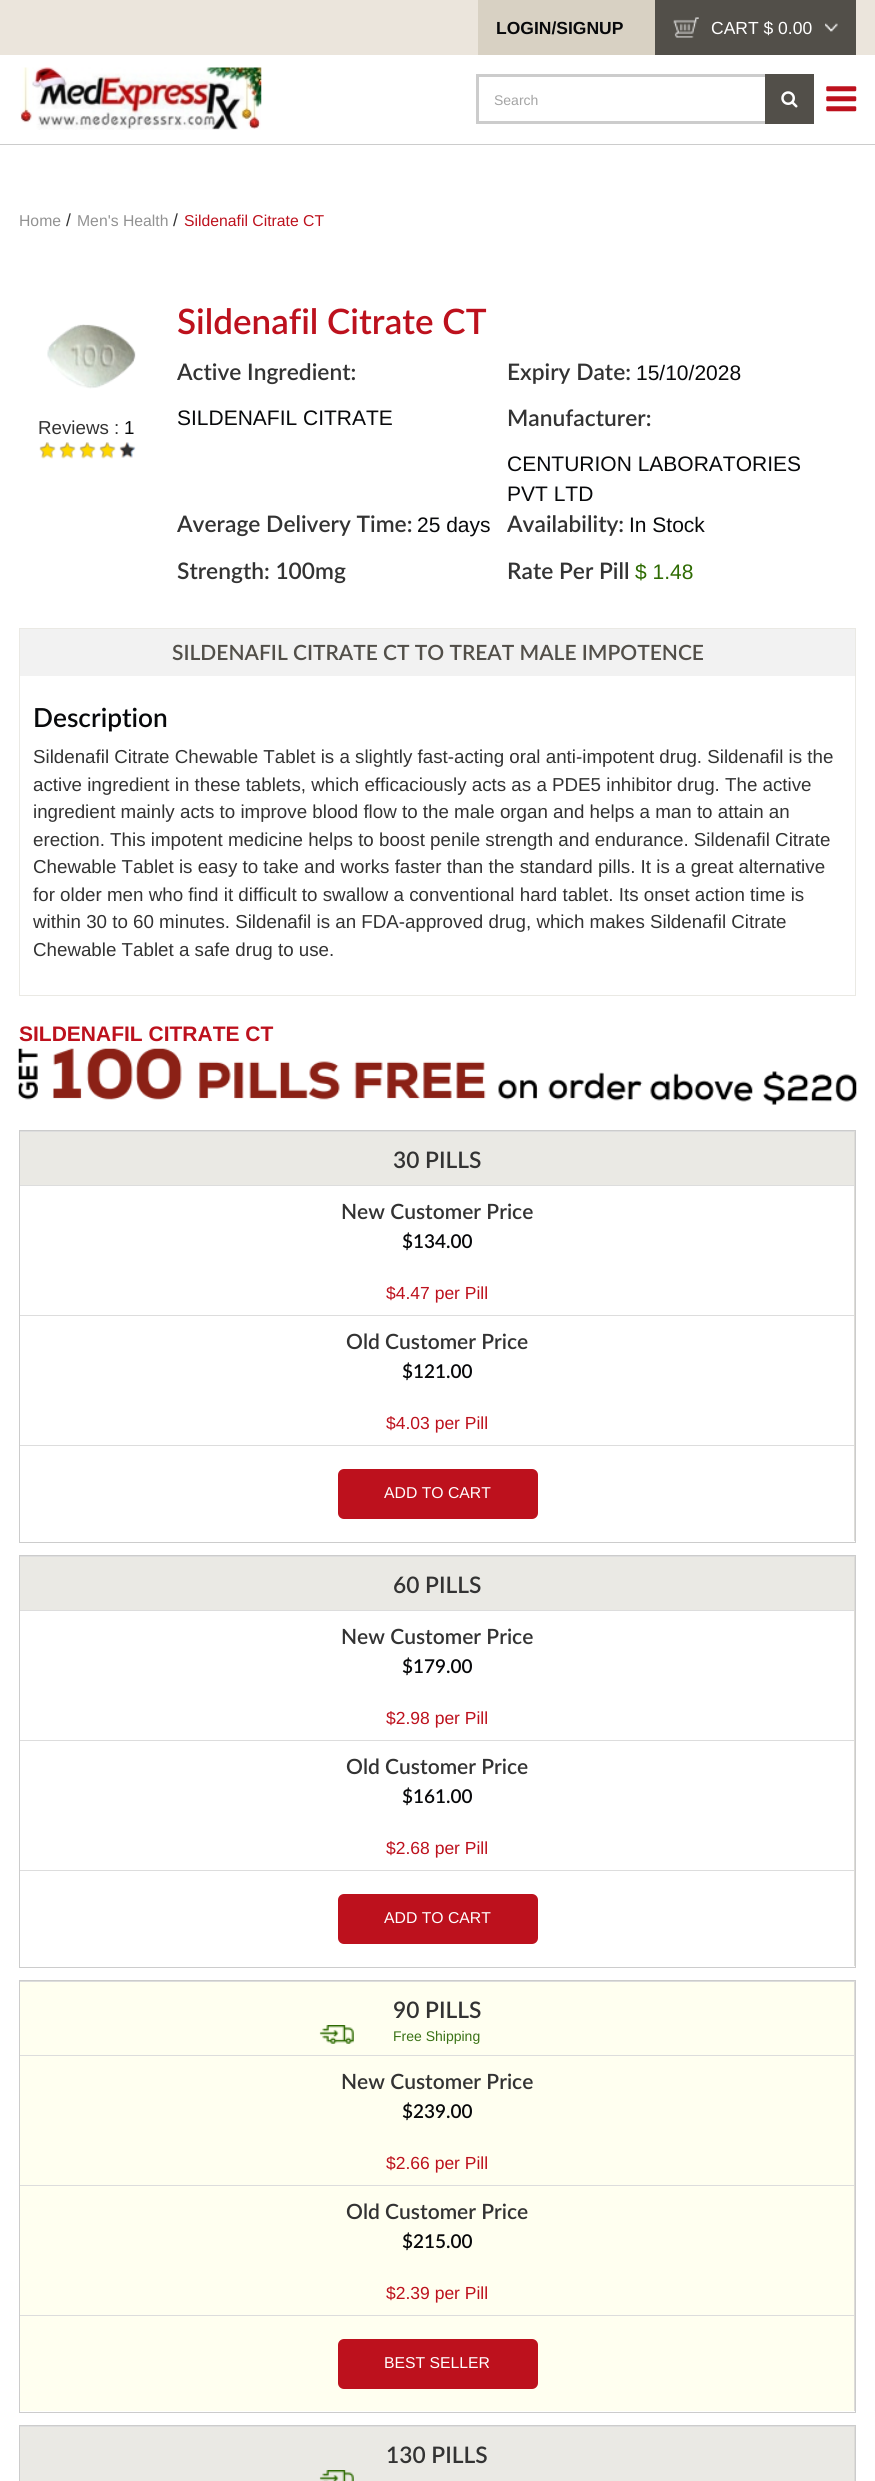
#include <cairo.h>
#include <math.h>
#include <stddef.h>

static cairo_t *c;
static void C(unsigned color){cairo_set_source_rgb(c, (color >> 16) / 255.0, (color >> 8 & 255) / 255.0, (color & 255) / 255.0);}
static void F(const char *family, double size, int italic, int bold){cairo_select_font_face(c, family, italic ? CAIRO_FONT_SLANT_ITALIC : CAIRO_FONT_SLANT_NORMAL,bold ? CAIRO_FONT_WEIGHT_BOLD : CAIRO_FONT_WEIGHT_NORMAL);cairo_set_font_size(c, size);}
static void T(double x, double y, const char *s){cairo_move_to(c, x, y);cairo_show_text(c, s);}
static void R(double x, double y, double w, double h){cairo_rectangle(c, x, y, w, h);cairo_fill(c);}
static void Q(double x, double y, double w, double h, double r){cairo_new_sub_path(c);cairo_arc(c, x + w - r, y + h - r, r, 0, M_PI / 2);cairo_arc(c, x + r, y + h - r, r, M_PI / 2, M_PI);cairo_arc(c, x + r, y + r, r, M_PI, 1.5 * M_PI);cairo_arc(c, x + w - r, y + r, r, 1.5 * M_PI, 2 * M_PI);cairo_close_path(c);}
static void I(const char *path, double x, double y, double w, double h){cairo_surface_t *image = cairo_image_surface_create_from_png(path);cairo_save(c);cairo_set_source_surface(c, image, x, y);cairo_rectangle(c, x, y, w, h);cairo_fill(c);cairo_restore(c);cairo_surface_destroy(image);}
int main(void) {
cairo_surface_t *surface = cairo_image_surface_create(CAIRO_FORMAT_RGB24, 875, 2481);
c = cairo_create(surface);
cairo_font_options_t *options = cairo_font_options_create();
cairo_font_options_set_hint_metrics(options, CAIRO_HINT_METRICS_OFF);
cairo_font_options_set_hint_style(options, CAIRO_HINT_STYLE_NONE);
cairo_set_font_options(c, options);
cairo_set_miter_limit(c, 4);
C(0xebe5dc);
cairo_paint(c);
C(0xd8d1c3);
R(478,0,177,55);
F("Liberation Sans",17.5,0,1);
C(0x08090b);
T(496,34,"LOGIN/SIGNUP");
C(0x524f49);
R(655,0,201,55);
I("1.png",673,17,26,21);
F("Liberation Sans",17.5,0,0);
C(0xffffff);
T(711,34,"CART $ 0.00");
I("2.png",825,23,13,9);
R(0,55,875,89);
C(0xcccccc);
R(0,144,875,1);
I("3.png",20,67,242,63);
cairo_rectangle(c,477.5,75.5,335,47);
cairo_set_line_width(c,3);
cairo_stroke(c);
F("Liberation Sans",14,0,0);
C(0xa4a4a4);
T(494,105,"Search");
C(0x524f49);
R(765,74,49,50);
I("4.png",781,91,17,17);
I("5.png",826,86,31,26);
C(0xffffff);
R(0,145,875,2336);
F("Liberation Sans",15.75,0,0);
C(0x929292);
T(19,226,"Home");
F("Liberation Sans",17.5,0,0);
C(0x333333);
T(66,226,"/");
F("Liberation Sans",15.75,0,0);
C(0x929292);
T(77,226,"Men's Health");
F("Liberation Sans",17.5,0,0);
C(0x333333);
T(173,226,"/");
F("Liberation Sans",15.75,0,0);
C(0xbd111d);
T(184,226,"Sildenafil Citrate CT");
I("6.png",47,324,89,65);
F("Liberation Sans",18.75,0,0);
C(0x333333);
T(38,434,"Reviews :");
C(0x08090b);
T(124,434,"1");
I("7.png",39,442,97,16);
I("8.png",39,442,77,17);
F("Lato SemiBold",35,0,0);
C(0xbd111d);
T(177,334,"Sildenafil Citrate CT");
F("Lato SemiBold",22.75,0,0);
C(0x333333);
T(177,380,"Active Ingredient:");
F("Liberation Sans",21,0,0);
C(0x08090b);
T(177,425,"SILDENAFIL CITRATE");
F("Lato SemiBold",22.75,0,0);
C(0x333333);
T(507,380,"Expiry Date:");
F("Liberation Sans",21,0,0);
C(0x08090b);
T(636,380,"15/10/2028");
F("Lato SemiBold",22.75,0,0);
C(0x333333);
T(507,426,"Manufacturer:");
F("Liberation Sans",21,0,0);
C(0x08090b);
T(507,471,"CENTURION LABORATORIES");
T(507,501,"PVT LTD");
F("Lato SemiBold",22.75,0,0);
C(0x333333);
T(177,532,"Average Delivery Time:");
F("Liberation Sans",21,0,0);
C(0x08090b);
T(417,532,"25 days");
F("Lato SemiBold",22.75,0,0);
C(0x333333);
T(507,532,"Availability:");
F("Liberation Sans",21,0,0);
C(0x08090b);
T(629,532,"In Stock");
F("Lato SemiBold",22.75,0,0);
C(0x333333);
T(177,579,"Strength: 100mg");
T(507,579,"Rate Per Pill");
F("Liberation Sans",21,0,0);
C(0x2e6b02);
T(635,579,"$ 1.48");
cairo_rectangle(c,19.5,628.5,836,367);
C(0xeae9e4);
cairo_set_line_width(c,1);
cairo_stroke(c);
C(0xf2f2f2);
R(20,629,835,47);
F("Lato SemiBold",21,0,0);
C(0x524f49);
T(172,660,"SILDENAFIL CITRATE CT TO TREAT MALE IMPOTENCE");
F("Lato SemiBold",26.25,0,0);
C(0x08090b);
T(33,727,"Description");
F("Liberation Sans",18.75,0,0);
C(0x333333);
T(33,763,"Sildenafil Citrate Chewable Tablet is a slightly fast-acting oral anti-impotent drug. Sildenafil is the");
T(33,791,"active ingredient in these tablets, which efficaciously acts as a PDE5 inhibitor drug. The active");
T(33,818,"ingredient mainly acts to improve blood flow to the male organ and helps a man to attain an");
T(33,846,"erection. This impotent medicine helps to boost penile strength and endurance. Sildenafil Citrate");
T(33,873,"Chewable Tablet is easy to take and works faster than the standard pills. It is a great alternative");
T(33,901,"for older men who find it difficult to swallow a conventional hard tablet. Its onset action time is");
T(33,928,"within 30 to 60 minutes. Sildenafil is an FDA-approved drug, which makes Sildenafil Citrate");
T(33,956,"Chewable Tablet a safe drug to use.");
F("Liberation Sans",21,0,1);
C(0xbd111d);
T(19,1041,"SILDENAFIL CITRATE CT");
I("9.png",18,1048,839,57);
cairo_rectangle(c,19.5,1130.5,836,412);
C(0xcccccc);
cairo_stroke(c);
C(0xeae9e4);
R(20,1132,834,53);
C(0xdddddd);
R(20,1131,835,1);
C(0xdddcd8);
R(854,1131,1,54);
F("Lato SemiBold",22.75,0,0);
C(0x333333);
T(393,1168,"30 PILLS");
C(0xdddddd);
R(20,1185,835,1);
C(0xdddcd8);
R(854,1185,1,130);
F("Lato SemiBold",21,0,0);
C(0x333333);
T(341,1219,"New Customer Price");
F("Lato SemiBold",19,0,0);
C(0x08090b);
T(402,1248,"$134.00");
F("Liberation Sans",17.5,0,0);
C(0xbd111d);
T(386,1299,"$4.47 per Pill");
C(0xdddddd);
R(20,1315,835,1);
C(0xdddcd8);
R(854,1315,1,130);
F("Lato SemiBold",21,0,0);
C(0x333333);
T(346,1349,"Old Customer Price");
F("Lato SemiBold",19,0,0);
C(0x08090b);
T(402,1378,"$121.00");
F("Liberation Sans",17.5,0,0);
C(0xbd111d);
T(386,1429,"$4.03 per Pill");
C(0xdddddd);
R(20,1445,835,1);
C(0xdddcd8);
R(854,1445,1,96);
C(0xbd111d);
Q(338,1469,200,50,6);
cairo_fill(c);
F("Liberation Sans",15.75,0,0);
C(0xffffff);
T(384,1498,"ADD TO CART");
cairo_rectangle(c,19.5,1555.5,836,412);
C(0xcccccc);
cairo_stroke(c);
C(0xeae9e4);
R(20,1557,834,53);
C(0xdddddd);
R(20,1556,835,1);
C(0xdddcd8);
R(854,1556,1,54);
F("Lato SemiBold",22.75,0,0);
C(0x333333);
T(393,1593,"60 PILLS");
C(0xdddddd);
R(20,1610,835,1);
C(0xdddcd8);
R(854,1610,1,130);
F("Lato SemiBold",21,0,0);
C(0x333333);
T(341,1644,"New Customer Price");
F("Lato SemiBold",19,0,0);
C(0x08090b);
T(402,1673,"$179.00");
F("Liberation Sans",17.5,0,0);
C(0xbd111d);
T(386,1724,"$2.98 per Pill");
C(0xdddddd);
R(20,1740,835,1);
C(0xdddcd8);
R(854,1740,1,130);
F("Lato SemiBold",21,0,0);
C(0x333333);
T(346,1774,"Old Customer Price");
F("Lato SemiBold",19,0,0);
C(0x08090b);
T(402,1803,"$161.00");
F("Liberation Sans",17.5,0,0);
C(0xbd111d);
T(386,1854,"$2.68 per Pill");
C(0xdddddd);
R(20,1870,835,1);
C(0xdddcd8);
R(854,1870,1,96);
C(0xbd111d);
Q(338,1894,200,50,6);
cairo_fill(c);
F("Liberation Sans",15.75,0,0);
C(0xffffff);
T(384,1923,"ADD TO CART");
cairo_rectangle(c,19.5,1980.5,836,432);
C(0xcccccc);
cairo_stroke(c);
C(0xfffff0);
R(20,1982,834,73);
C(0xdddddd);
R(20,1981,835,1);
C(0xdddcd8);
R(854,1981,1,74);
F("Lato SemiBold",22.75,0,0);
C(0x333333);
T(393,2018,"90 PILLS");
I("10.png",319,2025,35,19);
F("Liberation Sans",14,0,0);
C(0x3a7216);
T(393,2041,"Free Shipping");
C(0xfffff0);
R(20,2056,834,129);
C(0xdddddd);
R(20,2055,835,1);
C(0xdddcd8);
R(854,2055,1,130);
F("Lato SemiBold",21,0,0);
C(0x333333);
T(341,2089,"New Customer Price");
F("Lato SemiBold",19,0,0);
C(0x08090b);
T(402,2118,"$239.00");
F("Liberation Sans",17.5,0,0);
C(0xbd111d);
T(386,2169,"$2.66 per Pill");
C(0xfffff0);
R(20,2186,834,129);
C(0xdddddd);
R(20,2185,835,1);
C(0xdddcd8);
R(854,2185,1,130);
F("Lato SemiBold",21,0,0);
C(0x333333);
T(346,2219,"Old Customer Price");
F("Lato SemiBold",19,0,0);
C(0x08090b);
T(402,2248,"$215.00");
F("Liberation Sans",17.5,0,0);
C(0xbd111d);
T(386,2299,"$2.39 per Pill");
C(0xfffff0);
R(20,2316,834,95);
C(0xdddddd);
R(20,2315,835,1);
C(0xdddcd8);
R(854,2315,1,96);
C(0xbd111d);
Q(338,2339,200,50,6);
cairo_fill(c);
F("Liberation Sans",15.75,0,0);
C(0xffffff);
T(384,2368,"BEST SELLER");
cairo_rectangle(c,19.5,2425.5,836,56);
C(0xcccccc);
cairo_stroke(c);
C(0xeae9e4);
R(20,2427,834,54);
C(0xdddddd);
R(20,2426,835,1);
C(0xdddcd8);
R(854,2426,1,55);
F("Lato SemiBold",22.75,0,0);
C(0x333333);
T(386,2463,"130 PILLS");
I("11.png",319,2470,35,11);
cairo_surface_write_to_png(surface, "o.png");
cairo_font_options_destroy(options);
cairo_destroy(c);
cairo_surface_destroy(surface);
return 0;
}
